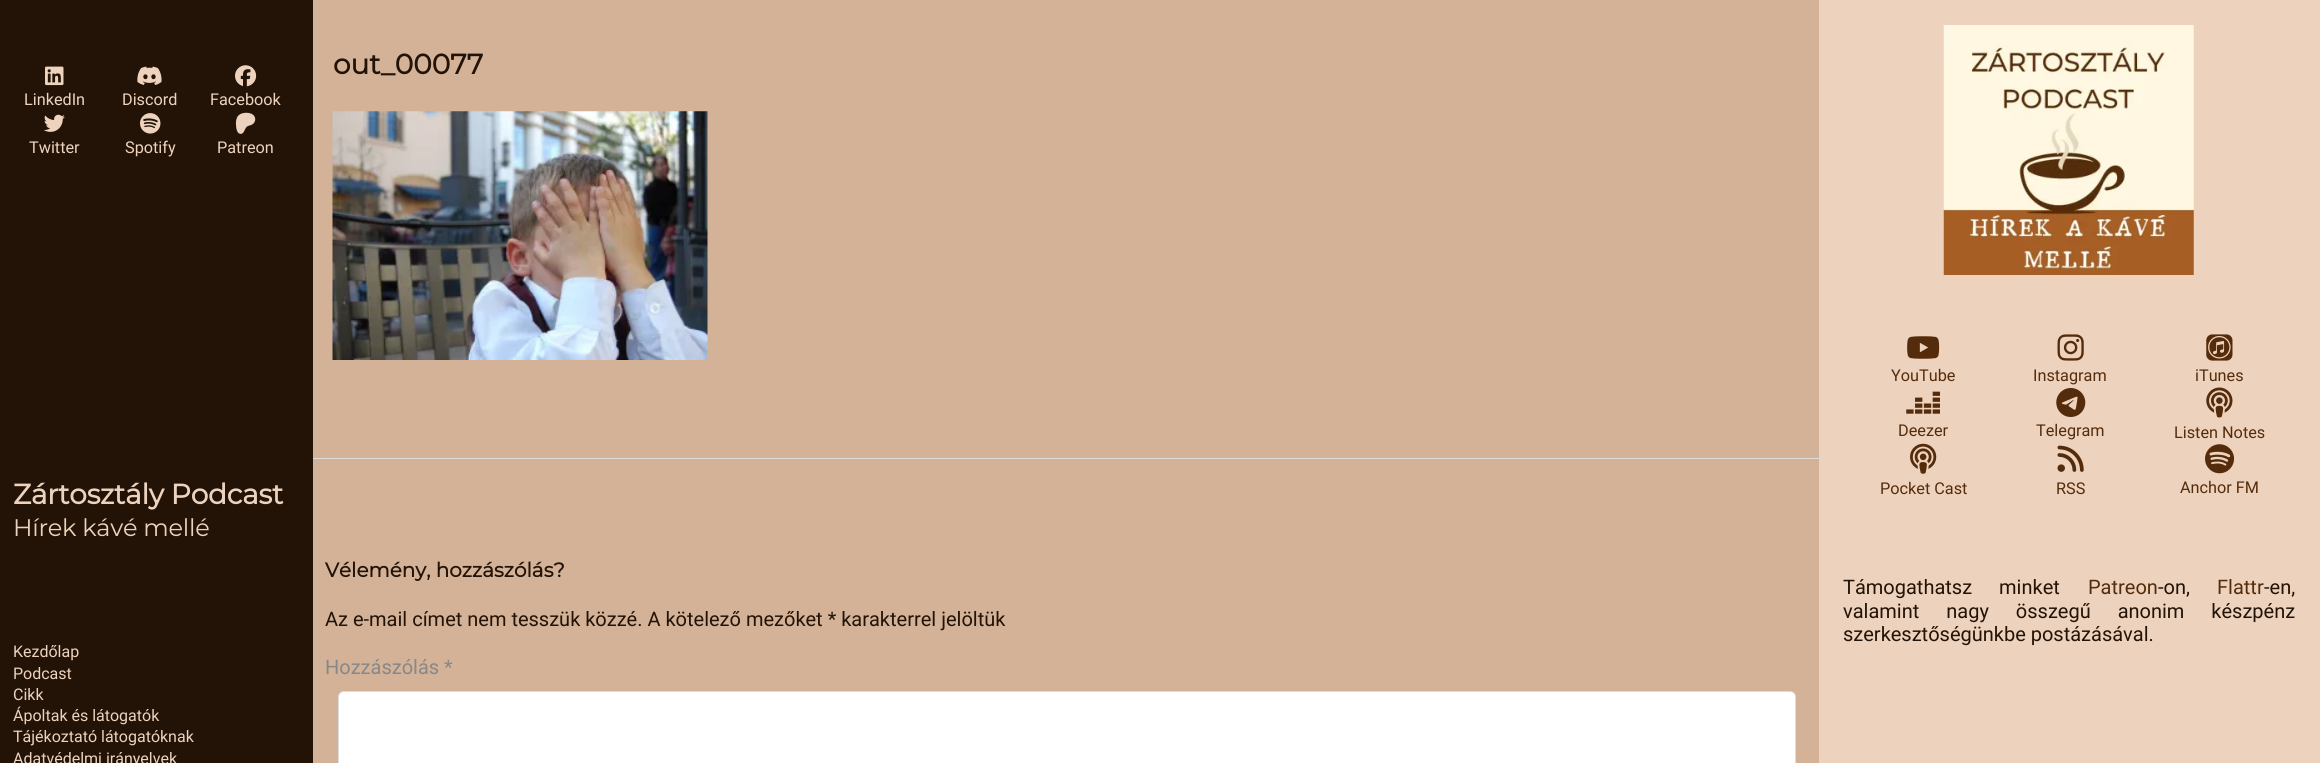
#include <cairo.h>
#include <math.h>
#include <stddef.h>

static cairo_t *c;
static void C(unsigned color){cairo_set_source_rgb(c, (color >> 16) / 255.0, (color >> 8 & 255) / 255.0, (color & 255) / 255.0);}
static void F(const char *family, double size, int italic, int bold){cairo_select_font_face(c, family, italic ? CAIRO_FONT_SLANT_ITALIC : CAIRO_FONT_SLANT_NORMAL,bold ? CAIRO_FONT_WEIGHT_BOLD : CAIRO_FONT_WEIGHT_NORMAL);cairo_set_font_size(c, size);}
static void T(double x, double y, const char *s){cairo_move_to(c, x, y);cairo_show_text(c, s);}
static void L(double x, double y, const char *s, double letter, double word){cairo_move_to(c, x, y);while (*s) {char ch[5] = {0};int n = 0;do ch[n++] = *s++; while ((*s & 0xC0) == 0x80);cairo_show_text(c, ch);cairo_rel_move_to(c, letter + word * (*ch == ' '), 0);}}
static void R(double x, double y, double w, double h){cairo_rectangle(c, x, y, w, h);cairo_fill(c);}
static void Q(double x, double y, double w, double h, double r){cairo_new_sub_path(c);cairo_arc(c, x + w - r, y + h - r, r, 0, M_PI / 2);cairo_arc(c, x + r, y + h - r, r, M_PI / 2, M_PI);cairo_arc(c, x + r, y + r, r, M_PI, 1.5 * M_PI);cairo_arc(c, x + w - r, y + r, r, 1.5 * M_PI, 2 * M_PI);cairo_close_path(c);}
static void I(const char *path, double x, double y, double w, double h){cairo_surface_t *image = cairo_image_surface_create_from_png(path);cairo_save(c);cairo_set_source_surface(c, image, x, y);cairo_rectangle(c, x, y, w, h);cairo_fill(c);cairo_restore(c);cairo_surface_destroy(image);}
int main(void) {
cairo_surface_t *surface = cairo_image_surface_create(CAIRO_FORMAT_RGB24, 2320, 763);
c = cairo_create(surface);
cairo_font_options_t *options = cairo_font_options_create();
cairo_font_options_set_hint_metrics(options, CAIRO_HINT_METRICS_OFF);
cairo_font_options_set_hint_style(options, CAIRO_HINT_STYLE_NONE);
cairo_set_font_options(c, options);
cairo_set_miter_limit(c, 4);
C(0xedd3be);
cairo_paint(c);
C(0x231306);
R(0,0,313,763);
I("1.png",45,66,19,20);
F("Roboto",16.25,0,0);
C(0xedd3be);
T(24,105,"LinkedIn");
I("2.png",137,66,25,19);
T(122,105,"Discord");
I("3.png",235,65,22,22);
T(210,105,"Facebook");
I("4.png",44,114,21,18);
T(29,153,"Twitter");
I("5.png",140,113,21,21);
T(125,153,"Spotify");
I("6.png",235,112,21,22);
T(217,153,"Patreon");
F("Montserrat",28,0,1);
L(13,504,"Zártosztály Podcast",-.25,0);
F("Montserrat Thin",24,0,0);
L(13,536,"Hírek kávé mellé",-.25,0);
F("Roboto",16,0,0);
T(13,657,"Kezdőlap");
T(13,679,"Podcast");
T(13,700,"Cikk");
T(13,721,"Ápoltak és látogatók");
T(13,742,"Tájékoztató látogatóknak");
T(13,764,"Adatvédelmi irányelvek");
C(0xd3b298);
R(313,0,1506,763);
C(0xdddddd);
R(313,458,1506,1);
F("Montserrat",28,0,1);
C(0x231306);
T(333,74,"out_00077");
I("7.png",332,111,376,249);
F("Montserrat",20,0,1);
T(325,577,"Vélemény, hozzászólás?");
F("Roboto",20,0,0);
T(325,626,"Az e-mail címet nem tesszük közzé. A kötelező mezőket * karakterrel jelöltük");
C(0x888888);
T(325,674,"Hozzászólás *");
C(0xffffff);
Q(338.5,691.5,1457,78,5.5);
cairo_fill_preserve(c);
C(0xdddddd);
cairo_set_line_width(c,1);
cairo_stroke(c);
I("8.png",1943,25,251,250);
I("9.png",1907,336,33,23);
F("Roboto",16.25,0,0);
C(0x552c0b);
T(1891,381,"YouTube");
I("10.png",2057,334,27,27);
T(2033,381,"Instagram");
I("11.png",2206,334,27,27);
T(2195,381,"iTunes");
I("12.png",1906,391,34,23);
T(1898,436,"Deezer");
I("13.png",2056,388,30,29);
T(2036,436,"Telegram");
I("14.png",2206,387,27,31);
T(2174,438,"Listen Notes");
I("15.png",1910,443,27,31);
T(1880,494,"Pocket Cast");
I("16.png",2057,445,27,27);
T(2056,494,"RSS");
I("17.png",2205,444,30,30);
T(2180,493,"Anchor FM");
F("Roboto",20,0,0);
C(0x231306);
L(1843,594,"Támogathatsz minket",0,22);
C(0x552c0b);
T(2088,594,"Patreon");
C(0x231306);
T(2158,594,"-on,");
C(0x552c0b);
T(2217,594,"Flattr");
C(0x231306);
T(2264,594,"-en,");
L(1843,618,"valamint nagy összegű anonim készpénz",0,22);
T(1843,641,"szerkesztőségünkbe postázásával.");
cairo_surface_write_to_png(surface, "o.png");
cairo_font_options_destroy(options);
cairo_destroy(c);
cairo_surface_destroy(surface);
return 0;
}
